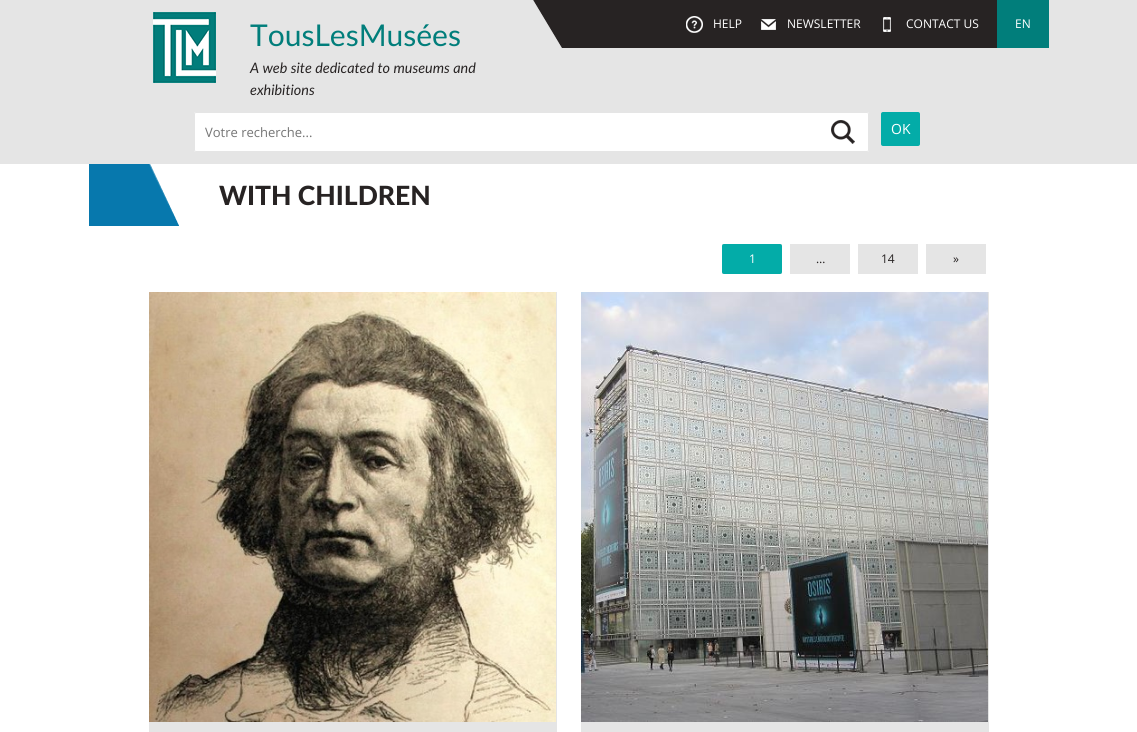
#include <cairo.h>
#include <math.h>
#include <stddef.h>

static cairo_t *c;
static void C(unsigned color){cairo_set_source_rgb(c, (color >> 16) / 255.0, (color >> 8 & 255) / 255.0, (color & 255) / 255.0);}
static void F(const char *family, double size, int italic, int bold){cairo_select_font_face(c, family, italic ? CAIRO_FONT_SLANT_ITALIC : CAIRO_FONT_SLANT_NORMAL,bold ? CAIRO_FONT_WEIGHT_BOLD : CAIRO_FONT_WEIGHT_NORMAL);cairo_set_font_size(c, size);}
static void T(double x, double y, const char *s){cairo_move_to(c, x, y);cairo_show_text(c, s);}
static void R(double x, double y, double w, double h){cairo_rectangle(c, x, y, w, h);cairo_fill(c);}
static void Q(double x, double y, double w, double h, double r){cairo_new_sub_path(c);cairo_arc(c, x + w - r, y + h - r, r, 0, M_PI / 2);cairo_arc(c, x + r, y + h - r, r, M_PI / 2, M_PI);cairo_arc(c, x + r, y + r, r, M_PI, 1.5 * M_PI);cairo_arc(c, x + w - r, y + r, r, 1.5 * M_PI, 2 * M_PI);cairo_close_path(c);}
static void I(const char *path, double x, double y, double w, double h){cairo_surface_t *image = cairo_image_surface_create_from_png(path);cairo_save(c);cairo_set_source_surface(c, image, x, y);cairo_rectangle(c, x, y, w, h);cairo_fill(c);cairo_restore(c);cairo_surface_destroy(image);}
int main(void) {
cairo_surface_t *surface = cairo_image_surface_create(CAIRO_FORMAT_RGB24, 1137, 732);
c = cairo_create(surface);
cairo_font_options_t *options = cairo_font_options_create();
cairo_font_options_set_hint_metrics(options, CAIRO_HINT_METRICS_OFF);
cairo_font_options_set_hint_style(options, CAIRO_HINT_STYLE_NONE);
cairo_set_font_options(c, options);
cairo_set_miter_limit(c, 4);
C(0xe5e5e5);
cairo_paint(c);
I("1.png",153,12,63,71);
F("Lato",30,0,0);
C(0x017e7b);
T(250,46,"TousLesMusées");
F("Lato",14.4,1,0);
C(0x272323);
T(250,73,"A web site dedicated to museums and");
T(250,95,"exhibitions");
R(533,0,464,48);
I("2.png",533,0,60,100);
I("3.png",686,16,17,17);
F("Open Sans",12,0,0);
C(0xffffff);
T(713,28,"HELP");
I("4.png",761,19,15,11);
T(787,28,"NEWSLETTER");
I("5.png",883,17,8,15);
T(906,28,"CONTACT US");
C(0x017e7b);
R(997,0,52,48);
C(0xffffff);
T(1015,28,"EN");
R(0,164,1137,568);
Q(194,112,675,40,2);
cairo_fill(c);
I("6.png",831,120,24,24);
Q(194.5,112.5,674,39,1.5);
C(0xe5e5e5);
cairo_set_line_width(c,1);
cairo_stroke(c);
F("Open Sans",13,0,0);
C(0x757575);
T(205,137,"Votre recherche...");
C(0x03aca8);
Q(881,112,39,34,2);
cairo_fill(c);
F("Open Sans",14,0,0);
C(0xffffff);
T(891,134,"OK");
I("7.png",89,164,90,62);
F("Lato Black",26.5,0,0);
C(0x272323);
T(219,205,"WITH CHILDREN");
C(0xe5e5e5);
R(722,244,60,30);
C(0x03aca8);
Q(722,244,60,30,2);
cairo_fill(c);
F("Open Sans",12,0,0);
C(0xffffff);
T(749,263,"1");
C(0xe5e5e5);
R(790,244,60,30);
C(0x272323);
T(816,263,"…");
C(0xe5e5e5);
R(858,244,60,30);
C(0x272323);
T(881,263,"14");
C(0xe5e5e5);
R(926,244,60,30);
C(0x272323);
T(953,263,"»");
C(0xe5e5e5);
R(149,292,408,440);
I("8.png",149,292,407,430);
R(581,292,408,440);
I("9.png",581,292,407,430);
cairo_surface_write_to_png(surface, "o.png");
cairo_font_options_destroy(options);
cairo_destroy(c);
cairo_surface_destroy(surface);
return 0;
}
